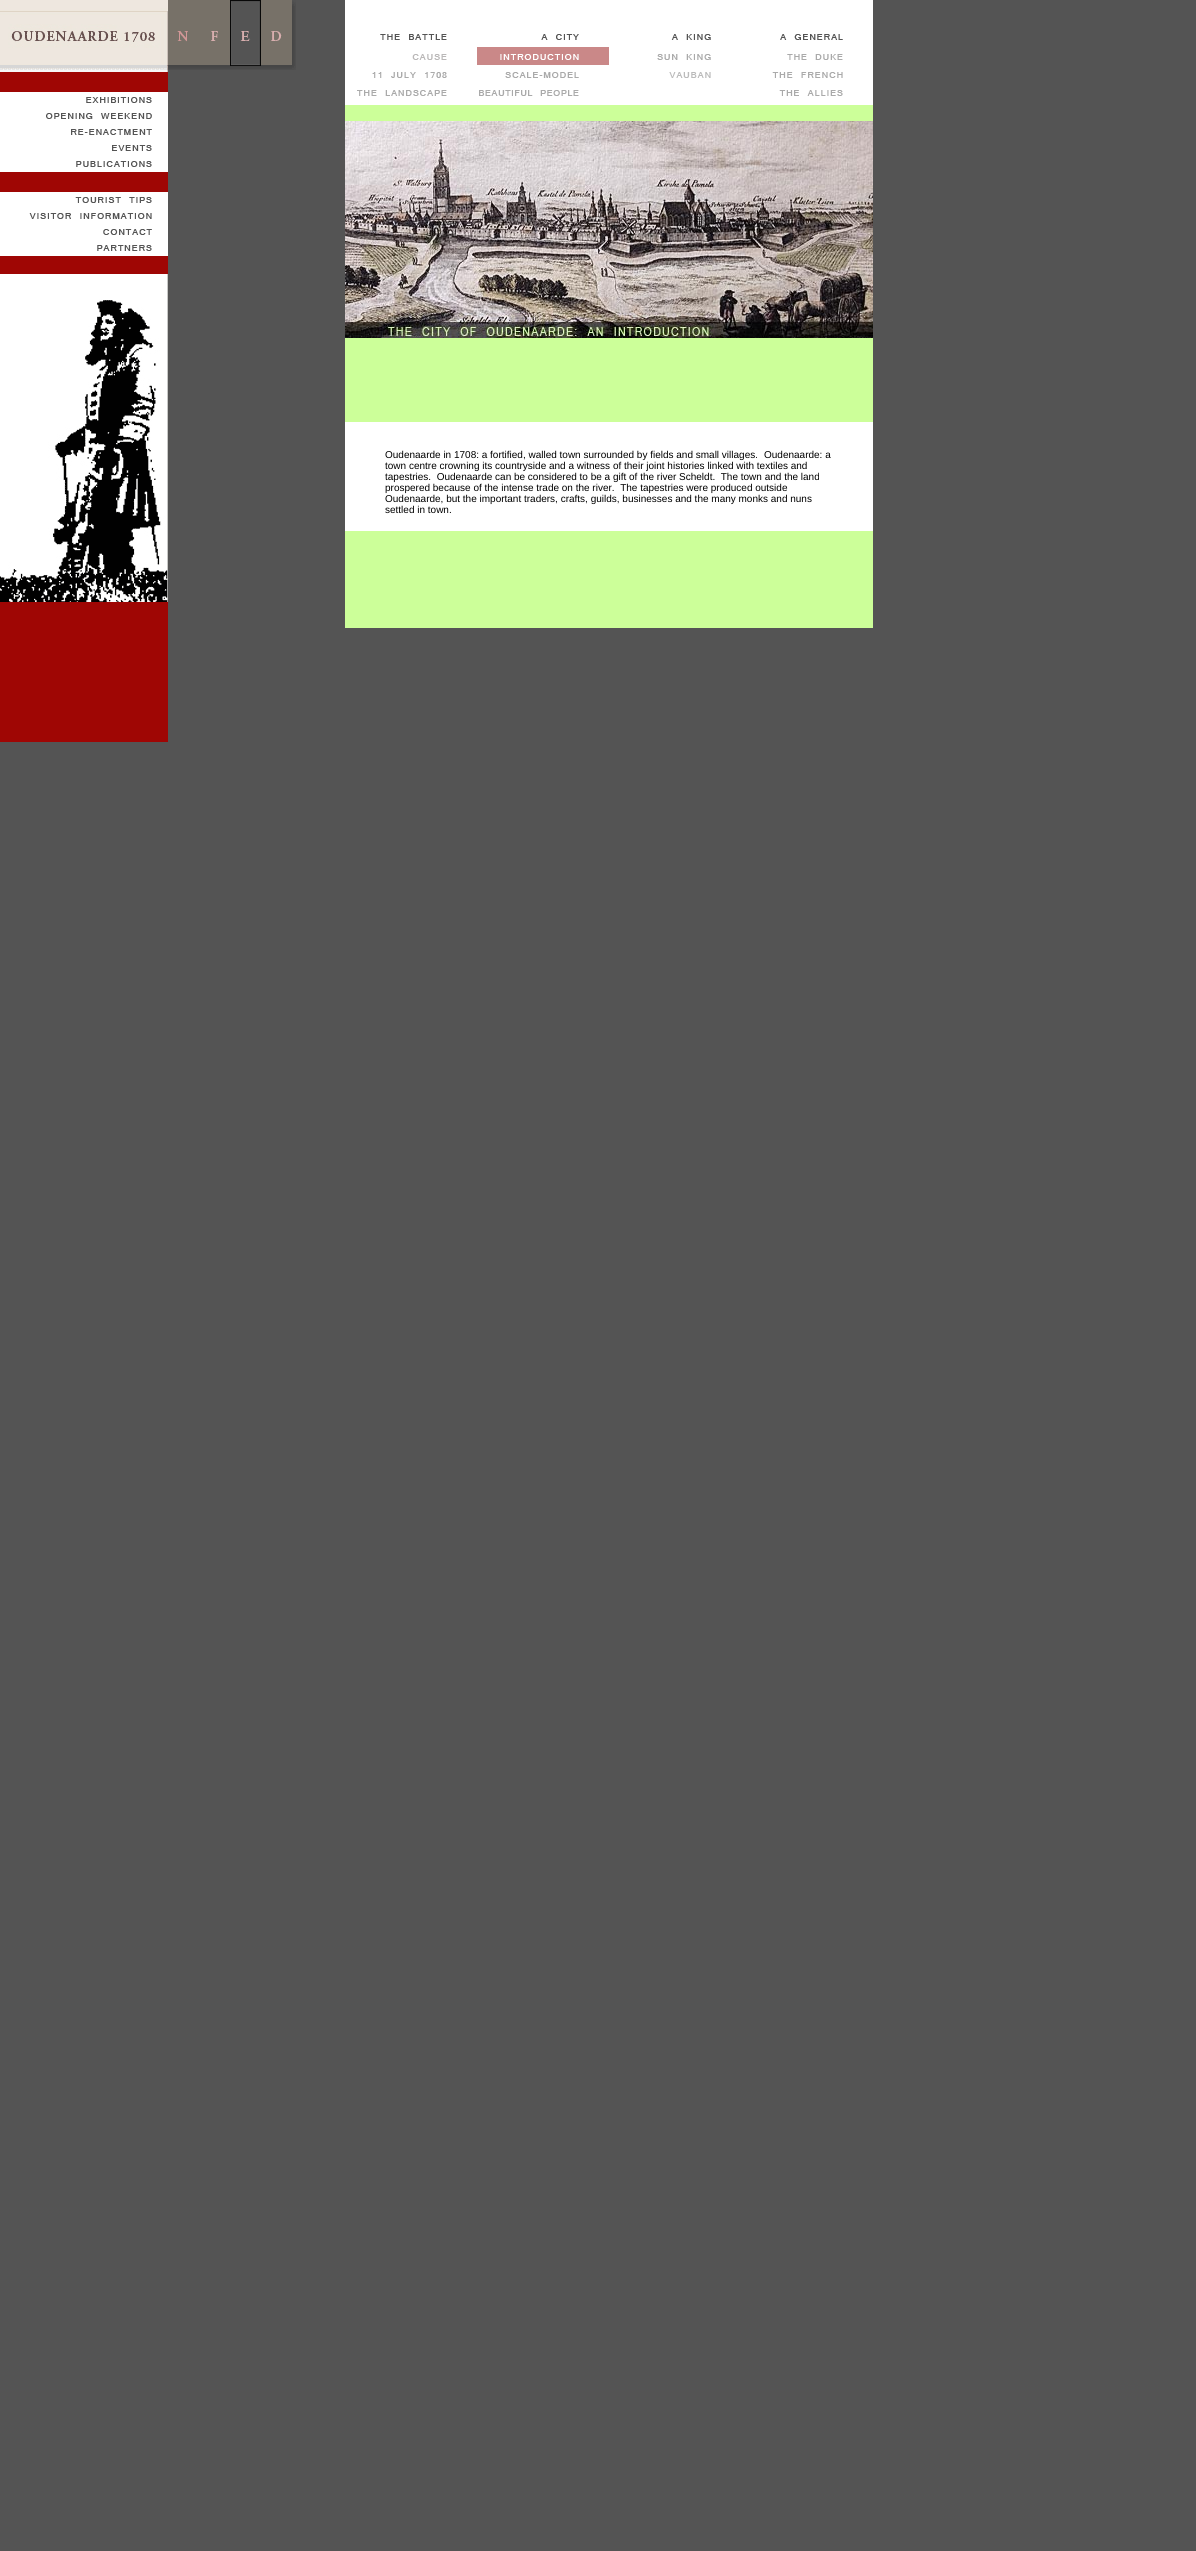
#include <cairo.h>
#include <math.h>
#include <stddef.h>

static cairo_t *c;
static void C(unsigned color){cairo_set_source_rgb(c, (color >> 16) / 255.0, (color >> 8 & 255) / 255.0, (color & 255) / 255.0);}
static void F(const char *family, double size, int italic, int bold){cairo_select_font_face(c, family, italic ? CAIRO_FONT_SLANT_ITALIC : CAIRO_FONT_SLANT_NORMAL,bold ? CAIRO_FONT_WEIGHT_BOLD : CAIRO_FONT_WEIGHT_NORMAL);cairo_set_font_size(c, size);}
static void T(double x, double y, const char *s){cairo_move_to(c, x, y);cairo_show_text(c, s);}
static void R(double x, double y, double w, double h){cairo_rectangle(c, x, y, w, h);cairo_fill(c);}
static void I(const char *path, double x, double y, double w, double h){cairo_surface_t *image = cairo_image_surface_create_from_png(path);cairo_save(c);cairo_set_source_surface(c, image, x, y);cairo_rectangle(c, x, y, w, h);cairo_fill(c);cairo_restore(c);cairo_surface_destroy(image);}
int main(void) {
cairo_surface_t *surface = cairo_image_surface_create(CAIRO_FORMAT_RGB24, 1196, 2551);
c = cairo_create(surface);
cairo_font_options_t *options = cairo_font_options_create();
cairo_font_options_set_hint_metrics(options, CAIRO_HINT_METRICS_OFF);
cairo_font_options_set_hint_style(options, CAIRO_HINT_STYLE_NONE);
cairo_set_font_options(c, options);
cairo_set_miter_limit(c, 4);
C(0x545454);
cairo_paint(c);
C(0x9f0604);
R(0,72,168,670);
I("1.png",0,0,168,72);
I("2.png",0,92,168,16);
I("3.png",0,108,168,16);
I("4.png",0,124,168,16);
I("5.png",0,140,168,16);
I("6.png",0,156,168,16);
I("7.png",0,192,168,16);
I("8.png",0,208,168,16);
I("9.png",0,224,168,16);
I("10.png",0,240,168,16);
I("11.png",0,274,168,328);
I("12.png",168,0,31,70);
I("13.png",199,0,31,70);
I("14.png",230,0,31,70);
I("15.png",261,0,35,70);
C(0xffffff);
R(345,0,528,105);
I("16.png",380,34,67,6);
I("17.png",541,34,38,6);
I("18.png",671,34,40,6);
I("19.png",780,34,63,6);
I("20.png",412,54,35,6);
I("21.png",477,47,132,18);
I("22.png",657,54,54,6);
I("23.png",787,54,56,6);
I("24.png",372,72,75,6);
I("25.png",505,72,74,6);
I("26.png",669,72,42,6);
I("27.png",772,72,71,6);
I("28.png",357,90,90,6);
I("29.png",479,90,100,6);
I("30.png",779,90,64,6);
C(0xccff99);
R(345,105,528,317);
I("31.png",345,121,528,217);
C(0xffffff);
R(345,422,528,109);
F("Liberation Sans",10,0,0);
C(0x000000);
T(385,458,"Oudenaarde in 1708: a fortified, walled town surrounded by fields and small villages.");
T(764,458,"Oudenaarde: a");
T(385,469,"town centre crowning its countryside and a witness of their joint histories linked with textiles and");
T(385,480,"tapestries.  Oudenaarde can be considered to be a gift of the river Scheldt.  The town and the land");
T(385,491,"prospered because of the intense trade on the river.  The tapestries were produced outside");
T(385,502,"Oudenaarde, but the important traders, crafts, guilds, businesses and the many monks and nuns");
T(385,513,"settled in town.");
C(0xccff99);
R(345,531,528,97);
cairo_surface_write_to_png(surface, "o.png");
cairo_font_options_destroy(options);
cairo_destroy(c);
cairo_surface_destroy(surface);
return 0;
}
